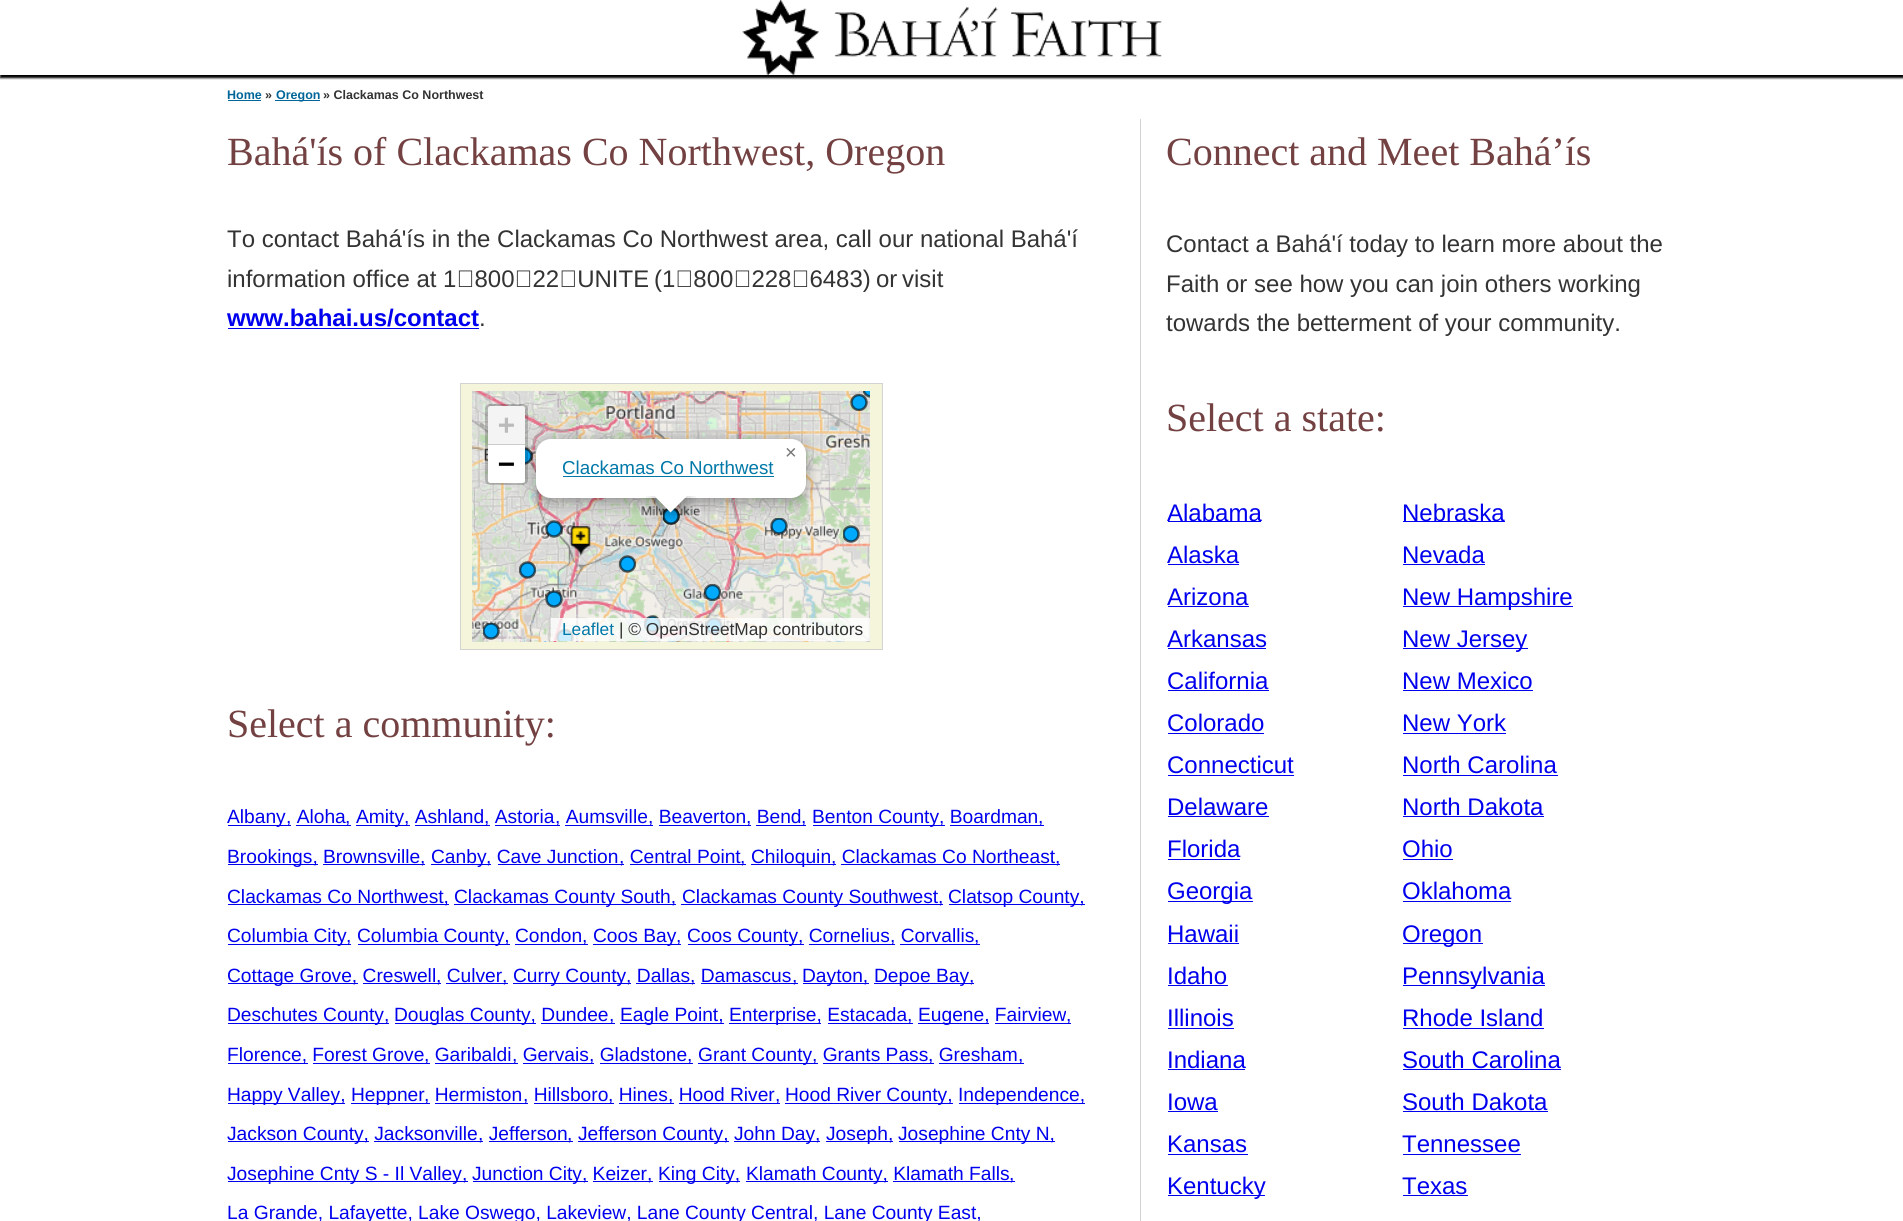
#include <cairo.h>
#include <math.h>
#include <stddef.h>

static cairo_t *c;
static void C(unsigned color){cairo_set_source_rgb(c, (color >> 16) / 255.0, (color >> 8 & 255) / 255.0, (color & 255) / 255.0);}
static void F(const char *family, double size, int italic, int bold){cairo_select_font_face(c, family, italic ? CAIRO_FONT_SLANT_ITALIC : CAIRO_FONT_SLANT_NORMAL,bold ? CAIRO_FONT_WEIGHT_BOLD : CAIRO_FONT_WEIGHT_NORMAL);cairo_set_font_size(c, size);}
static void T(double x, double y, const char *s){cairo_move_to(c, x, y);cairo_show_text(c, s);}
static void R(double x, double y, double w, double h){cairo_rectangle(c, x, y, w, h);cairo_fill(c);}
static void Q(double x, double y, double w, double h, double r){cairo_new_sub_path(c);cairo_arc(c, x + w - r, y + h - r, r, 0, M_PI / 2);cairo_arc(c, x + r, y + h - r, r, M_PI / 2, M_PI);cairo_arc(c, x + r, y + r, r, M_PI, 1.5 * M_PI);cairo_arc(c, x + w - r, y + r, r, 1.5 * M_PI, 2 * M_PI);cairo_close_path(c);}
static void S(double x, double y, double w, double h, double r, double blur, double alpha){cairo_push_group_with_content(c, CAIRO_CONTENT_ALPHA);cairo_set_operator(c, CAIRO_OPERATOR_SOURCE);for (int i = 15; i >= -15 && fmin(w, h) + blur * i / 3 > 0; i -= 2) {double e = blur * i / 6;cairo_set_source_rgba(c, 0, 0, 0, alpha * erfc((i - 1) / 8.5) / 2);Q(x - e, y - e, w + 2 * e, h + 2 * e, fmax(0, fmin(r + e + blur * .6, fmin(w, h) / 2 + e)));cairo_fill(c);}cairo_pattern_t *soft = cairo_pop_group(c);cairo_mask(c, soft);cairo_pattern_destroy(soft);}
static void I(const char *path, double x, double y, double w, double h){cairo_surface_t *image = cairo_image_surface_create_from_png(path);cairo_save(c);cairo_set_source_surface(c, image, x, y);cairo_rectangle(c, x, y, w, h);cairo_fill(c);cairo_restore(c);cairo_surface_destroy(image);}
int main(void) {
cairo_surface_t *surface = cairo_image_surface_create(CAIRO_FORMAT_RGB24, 1903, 1221);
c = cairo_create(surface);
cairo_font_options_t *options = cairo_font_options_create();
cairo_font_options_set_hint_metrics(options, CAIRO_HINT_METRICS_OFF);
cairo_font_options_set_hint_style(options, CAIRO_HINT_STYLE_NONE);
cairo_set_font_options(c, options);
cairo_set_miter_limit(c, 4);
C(0xffffff);
cairo_paint(c);
cairo_save(c);
cairo_rectangle(c,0,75,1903,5);
cairo_clip(c);
C(0x000000);
S(0,3,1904,75,0,1,1);
cairo_restore(c);
I("1.png",742,0,420,75);
F("Liberation Sans",12.5,0,1);
C(0x006699);
T(227,99,"Home");
R(228,100,33,1);
C(0x333333);
T(265,99,"»");
C(0x006699);
R(275,100,45,1);
T(276,99,"Oregon");
C(0x333333);
T(323,99,"» Clackamas Co Northwest");
F("Liberation Serif",40,0,0);
C(0x734142);
T(227,165,"Bahá'ís of Clackamas Co Northwest, Oregon");
F("Liberation Sans",24,0,0);
C(0x333333);
T(227,247,"To contact Bahá'ís in the Clackamas Co Northwest area, call our national Bahá'í");
T(227,287,"information office at 1‑800‑22‑UNITE");
T(654,287,"(1‑800‑228‑6483)");
T(876,287,"or");
T(902,287,"visit");
F("Liberation Sans",24,0,1);
C(0x0000ee);
T(227,326,"www.bahai.us/contact");
R(228,328,251,1);
F("Liberation Sans",24,0,0);
C(0x333333);
T(479,326,".");
C(0xf5f5dc);
cairo_rectangle(c,460.5,383.5,422,266);
cairo_fill_preserve(c);
C(0xd3d3d3);
cairo_set_line_width(c,1);
cairo_stroke(c);
I("2.png",472,391,150,251);
C(0x00aaff);
cairo_arc(c,524,456,7.5,0,2 * M_PI);
cairo_fill_preserve(c);
cairo_set_source_rgba(c,0,0,0,0.6);
cairo_set_line_width(c,2.5);
cairo_stroke(c);
I("3.png",621,391,249,251);
cairo_save(c);
cairo_rectangle(c,663,508,17,17);
cairo_clip(c);
cairo_arc(c,671,516,7.5,0,2 * M_PI);
cairo_stroke(c);
cairo_restore(c);
C(0x00aaff);
cairo_arc(c,554,529,7.5,0,2 * M_PI);
cairo_fill_preserve(c);
cairo_set_source_rgba(c,0,0,0,0.6);
cairo_stroke(c);
I("4.png",569,526,22,30);
C(0x00aaff);
cairo_arc(c,671,516,7.5,0,2 * M_PI);
cairo_fill(c);
cairo_save(c);
cairo_rectangle(c,663,508,17,17);
cairo_clip(c);
cairo_arc(c,671,516,7.5,0,2 * M_PI);
cairo_set_source_rgba(c,0,0,0,0.6);
cairo_stroke(c);
cairo_restore(c);
cairo_arc(c,779,526,7.5,0,2 * M_PI);
cairo_fill(c);
cairo_save(c);
cairo_rectangle(c,770,518,18,17);
cairo_clip(c);
cairo_arc(c,779,526,7.5,0,2 * M_PI);
cairo_set_source_rgba(c,0,0,0,0.6);
cairo_stroke(c);
cairo_restore(c);
C(0x000000);
S(536,443,270,58,15,9,.4);
Q(486.5,405.5,40,78,3.5);
cairo_set_source_rgba(c,0,0,0,0.2);
cairo_set_line_width(c,3);
cairo_stroke(c);
C(0xf4f4f4);
cairo_new_path(c);
cairo_move_to(c,490.5,406);
cairo_line_to(c,522.5,406);
cairo_curve_to(c,524,406,525,407,525,408.5);
cairo_line_to(c,525,445);
cairo_line_to(c,488,445);
cairo_line_to(c,488,408.5);
cairo_curve_to(c,488,407,489,406,490.5,406);
cairo_close_path(c);
cairo_fill(c);
C(0xcccccc);
R(488,444,37,1);
F("DejaVu Sans Mono",28,0,1);
C(0xbbbbbb);
T(498,434,"+");
C(0xffffff);
cairo_new_path(c);
cairo_move_to(c,488,445);
cairo_line_to(c,525,445);
cairo_line_to(c,525,480.5);
cairo_curve_to(c,525,482,524,483,522.5,483);
cairo_line_to(c,490.5,483);
cairo_curve_to(c,489,483,488,482,488,480.5);
cairo_close_path(c);
cairo_fill(c);
C(0x000000);
T(498,473,"−");
cairo_save(c);
cairo_rectangle(c,556,629,18,12);
cairo_clip(c);
C(0x00aaff);
cairo_arc(c,565,637.5,7.5,0,2 * M_PI);
cairo_fill_preserve(c);
cairo_set_source_rgba(c,0,0,0,0.6);
cairo_set_line_width(c,2.5);
cairo_stroke(c);
cairo_restore(c);
C(0x00aaff);
cairo_arc(c,652.5,624,7.5,0,2 * M_PI);
cairo_fill(c);
cairo_save(c);
cairo_rectangle(c,644,615,17,18);
cairo_clip(c);
cairo_arc(c,652.5,624,7.5,0,2 * M_PI);
cairo_set_source_rgba(c,0,0,0,0.6);
cairo_set_line_width(c,2.5);
cairo_stroke(c);
cairo_restore(c);
cairo_arc(c,714,626,7.5,0,2 * M_PI);
cairo_fill(c);
cairo_save(c);
cairo_rectangle(c,705,618,18,17);
cairo_clip(c);
cairo_arc(c,714,626,7.5,0,2 * M_PI);
cairo_set_source_rgba(c,0,0,0,0.6);
cairo_set_line_width(c,2.5);
cairo_stroke(c);
cairo_restore(c);
cairo_set_source_rgba(c,1,1,1,0.8);
R(551,618,319,23);
F("Liberation Sans",17.3,0,0);
C(0x0078a8);
T(562,635,"Leaflet");
C(0x333333);
T(619,635,"| © OpenStreetMap contributors");
cairo_save(c);
cairo_rectangle(c,863,391,7,7);
cairo_clip(c);
C(0x00aaff);
cairo_arc(c,871,389,7.5,0,2 * M_PI);
cairo_fill_preserve(c);
cairo_set_source_rgba(c,0,0,0,0.6);
cairo_set_line_width(c,2.5);
cairo_stroke(c);
cairo_restore(c);
C(0x00aaff);
cairo_arc(c,859,402.5,7.5,0,2 * M_PI);
cairo_fill(c);
cairo_save(c);
cairo_rectangle(c,850,394,18,17);
cairo_clip(c);
cairo_arc(c,859,402.5,7.5,0,2 * M_PI);
cairo_set_source_rgba(c,0,0,0,0.6);
cairo_set_line_width(c,2.5);
cairo_stroke(c);
cairo_restore(c);
cairo_arc(c,851,534,7.5,0,2 * M_PI);
cairo_fill(c);
cairo_save(c);
cairo_rectangle(c,843,525,17,18);
cairo_clip(c);
cairo_arc(c,851,534,7.5,0,2 * M_PI);
cairo_set_source_rgba(c,0,0,0,0.6);
cairo_set_line_width(c,2.5);
cairo_stroke(c);
cairo_restore(c);
cairo_arc(c,527.5,570,7.5,0,2 * M_PI);
cairo_fill(c);
cairo_save(c);
cairo_rectangle(c,519,561,17,18);
cairo_clip(c);
cairo_arc(c,527.5,570,7.5,0,2 * M_PI);
cairo_set_source_rgba(c,0,0,0,0.6);
cairo_set_line_width(c,2.5);
cairo_stroke(c);
cairo_restore(c);
cairo_arc(c,627.5,564,7.5,0,2 * M_PI);
cairo_fill(c);
cairo_save(c);
cairo_rectangle(c,619,555,17,18);
cairo_clip(c);
cairo_arc(c,627.5,564,7.5,0,2 * M_PI);
cairo_set_source_rgba(c,0,0,0,0.6);
cairo_set_line_width(c,2.5);
cairo_stroke(c);
cairo_restore(c);
cairo_arc(c,554,599,7.5,0,2 * M_PI);
cairo_fill_preserve(c);
cairo_set_source_rgba(c,0,0,0,0.6);
cairo_set_line_width(c,2.5);
cairo_stroke(c);
C(0x00aaff);
cairo_arc(c,712.5,592.5,7.5,0,2 * M_PI);
cairo_fill(c);
cairo_save(c);
cairo_rectangle(c,704,584,17,17);
cairo_clip(c);
cairo_arc(c,712.5,592.5,7.5,0,2 * M_PI);
cairo_set_source_rgba(c,0,0,0,0.6);
cairo_stroke(c);
cairo_restore(c);
cairo_arc(c,491,631,7.5,0,2 * M_PI);
cairo_fill(c);
cairo_save(c);
cairo_rectangle(c,483,623,17,17);
cairo_clip(c);
cairo_arc(c,491,631,7.5,0,2 * M_PI);
cairo_set_source_rgba(c,0,0,0,0.6);
cairo_stroke(c);
cairo_restore(c);
C(0xffffff);
Q(536,439,270,59,15);
cairo_fill(c);
F("Liberation Sans",20,0,0);
C(0x757575);
T(785,459,"×");
F("Liberation Sans",18.75,0,0);
C(0x0078a8);
T(562,474,"Clackamas Co Northwest");
R(563,476,211,1);
cairo_save(c);
cairo_rectangle(c,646,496,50,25);
cairo_clip(c);
C(0x000000);
S(659,488,24,23,0,9,.4);
cairo_restore(c);
cairo_save(c);
cairo_rectangle(c,646,496,50,25);
cairo_clip(c);
C(0xffffff);
cairo_new_path(c);
cairo_move_to(c,670.5,479);
cairo_line_to(c,687.5,495.5);
cairo_line_to(c,670.5,512.5);
cairo_line_to(c,654,495.5);
cairo_close_path(c);
cairo_fill(c);
cairo_restore(c);
F("Liberation Serif",40,0,0);
C(0x734142);
T(227,737,"Select a community:");
C(0x0000ee);
R(228,825,57,1);
F("Liberation Sans",19.2,0,0);
T(227,823,"Albany");
R(285,825,6,1);
T(286,823,", Aloha");
R(296,825,55,1);
T(345,823,",");
R(356,825,48,1);
T(356,823,"Amity");
R(404,825,6,1);
T(404,823,", Ashland");
R(415,825,75,1);
T(484,823,", Astoria");
R(495,825,65,1);
T(555,823,", Aumsville");
R(565,825,88,1);
T(648,823,", Beaverton");
R(659,825,92,1);
T(746,823,", Bend");
R(756,825,50,1);
T(801,823,",");
R(813,825,132,1);
T(812,823,"Benton County, Boardman");
R(950,825,94,1);
T(1038,823,",");
R(228,864,90,1);
T(227,863,"Brookings, Brownsville");
R(323,864,102,1);
T(420,863,",");
R(431,864,55,1);
T(431,863,"Canby");
R(486,864,5,1);
T(486,863,", Cave Junction");
R(498,864,126,1);
T(619,863,", Central Point");
R(630,864,116,1);
T(740,863,",");
R(751,864,85,1);
T(751,863,"Chiloquin, Clackamas Co Northeast");
R(841,864,219,1);
T(1055,863,",");
R(228,904,221,1);
T(227,903,"Clackamas Co Northwest,");
R(454,904,222,1);
T(454,903,"Clackamas County South,");
R(681,904,262,1);
T(682,903,"Clackamas County Southwest,");
R(949,904,136,1);
T(948,903,"Clatsop County,");
R(228,944,118,1);
T(227,942,"Columbia City");
R(346,944,5,1);
T(346,942,",");
R(358,944,152,1);
T(357,942,"Columbia County, Condon");
R(515,944,73,1);
T(582,942,",");
R(593,944,83,1);
T(593,942,"Coos Bay");
R(676,944,5,1);
T(676,942,",");
R(688,944,116,1);
T(687,942,"Coos County, Cornelius");
R(809,944,86,1);
T(890,942,", Corvallis");
R(900,944,80,1);
T(974,942,",");
R(228,983,130,1);
T(227,982,"Cottage Grove, Creswell");
R(363,983,78,1);
T(436,982,", Culver");
R(446,983,62,1);
T(502,982,",");
R(513,983,118,1);
T(513,982,"Curry County, Dallas");
R(636,983,59,1);
T(690,982,", Damascus");
R(701,983,97,1);
T(792,982,",");
R(803,983,66,1);
T(802,982,"Dayton,");
R(874,983,100,1);
T(874,982,"Depoe Bay,");
R(228,1023,161,1);
T(227,1021,"Deschutes County,");
R(395,1023,141,1);
T(394,1021,"Douglas County, Dundee");
R(541,1023,74,1);
T(609,1021,",");
R(620,1023,104,1);
T(620,1021,"Eagle Point,");
R(729,1023,92,1);
T(729,1021,"Enterprise, Estacada");
R(828,1023,85,1);
T(907,1021,",");
R(918,1023,71,1);
T(918,1021,"Eugene, Fairview");
R(995,1023,76,1);
T(1066,1021,",");
R(228,1063,80,1);
T(227,1061,"Florence, Forest Grove");
R(313,1063,117,1);
T(424,1061,", Garibaldi");
R(435,1063,83,1);
T(512,1061,", Gervais");
R(523,1063,71,1);
T(589,1061,", Gladstone");
R(600,1063,93,1);
T(687,1061,",");
R(698,1063,113,1);
T(698,1061,"Grant County");
R(811,1063,7,1);
T(812,1061,", Grants Pass");
R(823,1063,111,1);
T(928,1061,", Gresham");
R(939,1063,85,1);
T(1018,1061,",");
R(228,1103,117,1);
T(227,1101,"Happy Valley,");
R(351,1103,73,1);
T(351,1101,"Heppner");
R(424,1103,6,1);
T(424,1101,", Hermiston");
R(435,1103,93,1);
T(523,1101,", Hillsboro");
R(534,1103,80,1);
T(608,1101,", Hines");
R(619,1103,55,1);
T(668,1101,", Hood River");
R(679,1103,101,1);
T(775,1101,",");
R(785,1103,168,1);
T(785,1101,"Hood River County,");
R(959,1103,126,1);
T(958,1101,"Independence,");
R(228,1141,141,1);
T(227,1140,"Jackson County, Jacksonville");
R(374,1141,109,1);
T(478,1140,", Jefferson");
R(489,1141,84,1);
T(567,1140,",");
R(578,1141,151,1);
T(578,1140,"Jefferson County,");
R(734,1141,86,1);
T(734,1140,"John Day,");
R(826,1141,67,1);
T(826,1140,"Joseph,");
R(899,1141,156,1);
T(898,1140,"Josephine Cnty N,");
R(228,1181,233,1);
T(227,1180,"Josephine Cnty S - Il Valley");
R(461,1181,7,1);
T(462,1180,",");
R(473,1181,115,1);
T(472,1180,"Junction City, Keizer");
R(593,1181,60,1);
T(647,1180,",");
R(659,1181,81,1);
T(658,1180,"King City,");
R(746,1181,142,1);
T(746,1180,"Klamath County, Klamath Falls");
R(893,1181,122,1);
T(1009,1180,",");
T(227,1219,"La Grande, Lafayette, Lake Oswego, Lakeview, Lane County Central, Lane County East,");
C(0xd3d3d3);
R(1140,119,1,1102);
F("Liberation Serif",40,0,0);
C(0x734142);
T(1166,165,"Connect and Meet Bahá’ís");
F("Liberation Sans",24,0,0);
C(0x333333);
T(1166,252,"Contact a Bahá'í today to learn more about the");
T(1166,292,"Faith or see how you can join others working");
T(1166,331,"towards the betterment of your community.");
F("Liberation Serif",40,0,0);
C(0x734142);
T(1166,431,"Select a state:");
C(0x0000ee);
R(1168,521,93,1);
F("Liberation Sans",24,0,0);
T(1167,521,"Alabama");
R(1403,521,102,1);
T(1402,521,"Nebraska");
T(1167,563,"Alaska");
R(1168,564,71,1);
T(1402,563,"Nevada");
R(1403,564,82,1);
T(1167,605,"Arizona");
R(1168,606,81,1);
R(1403,606,170,1);
T(1402,605,"New Hampshire");
T(1167,647,"Arkansas");
R(1168,648,98,1);
R(1403,648,125,1);
T(1402,647,"New Jersey");
T(1167,689,"California");
R(1168,690,101,1);
T(1402,689,"New Mexico");
R(1403,690,130,1);
T(1167,731,"Colorado");
R(1168,733,96,1);
T(1402,731,"New York");
R(1403,733,103,1);
T(1167,773,"Connecticut");
R(1168,775,126,1);
T(1402,773,"North Carolina");
R(1403,775,155,1);
T(1167,815,"Delaware");
R(1168,816,101,1);
T(1402,815,"North Dakota");
R(1403,816,141,1);
T(1167,857,"Florida");
R(1168,859,72,1);
T(1402,857,"Ohio");
R(1403,859,50,1);
R(1168,901,85,1);
T(1167,899,"Georgia");
T(1402,899,"Oklahoma");
R(1403,901,108,1);
T(1167,942,"Hawaii");
R(1168,943,71,1);
R(1403,943,80,1);
T(1402,942,"Oregon");
T(1167,984,"Idaho");
R(1168,985,60,1);
R(1403,985,142,1);
T(1402,984,"Pennsylvania");
T(1167,1026,"Illinois");
R(1168,1028,66,1);
T(1402,1026,"Rhode Island");
R(1403,1028,141,1);
T(1167,1068,"Indiana");
R(1168,1069,77,1);
T(1402,1068,"South Carolina");
R(1403,1069,158,1);
T(1167,1110,"Iowa");
R(1168,1111,50,1);
T(1402,1110,"South Dakota");
R(1403,1111,145,1);
T(1167,1152,"Kansas");
R(1168,1154,80,1);
T(1402,1152,"Tennessee");
R(1403,1154,118,1);
R(1168,1195,97,1);
T(1167,1194,"Kentucky");
T(1402,1194,"Texas");
R(1403,1195,65,1);
cairo_surface_write_to_png(surface, "o.png");
cairo_font_options_destroy(options);
cairo_destroy(c);
cairo_surface_destroy(surface);
return 0;
}
